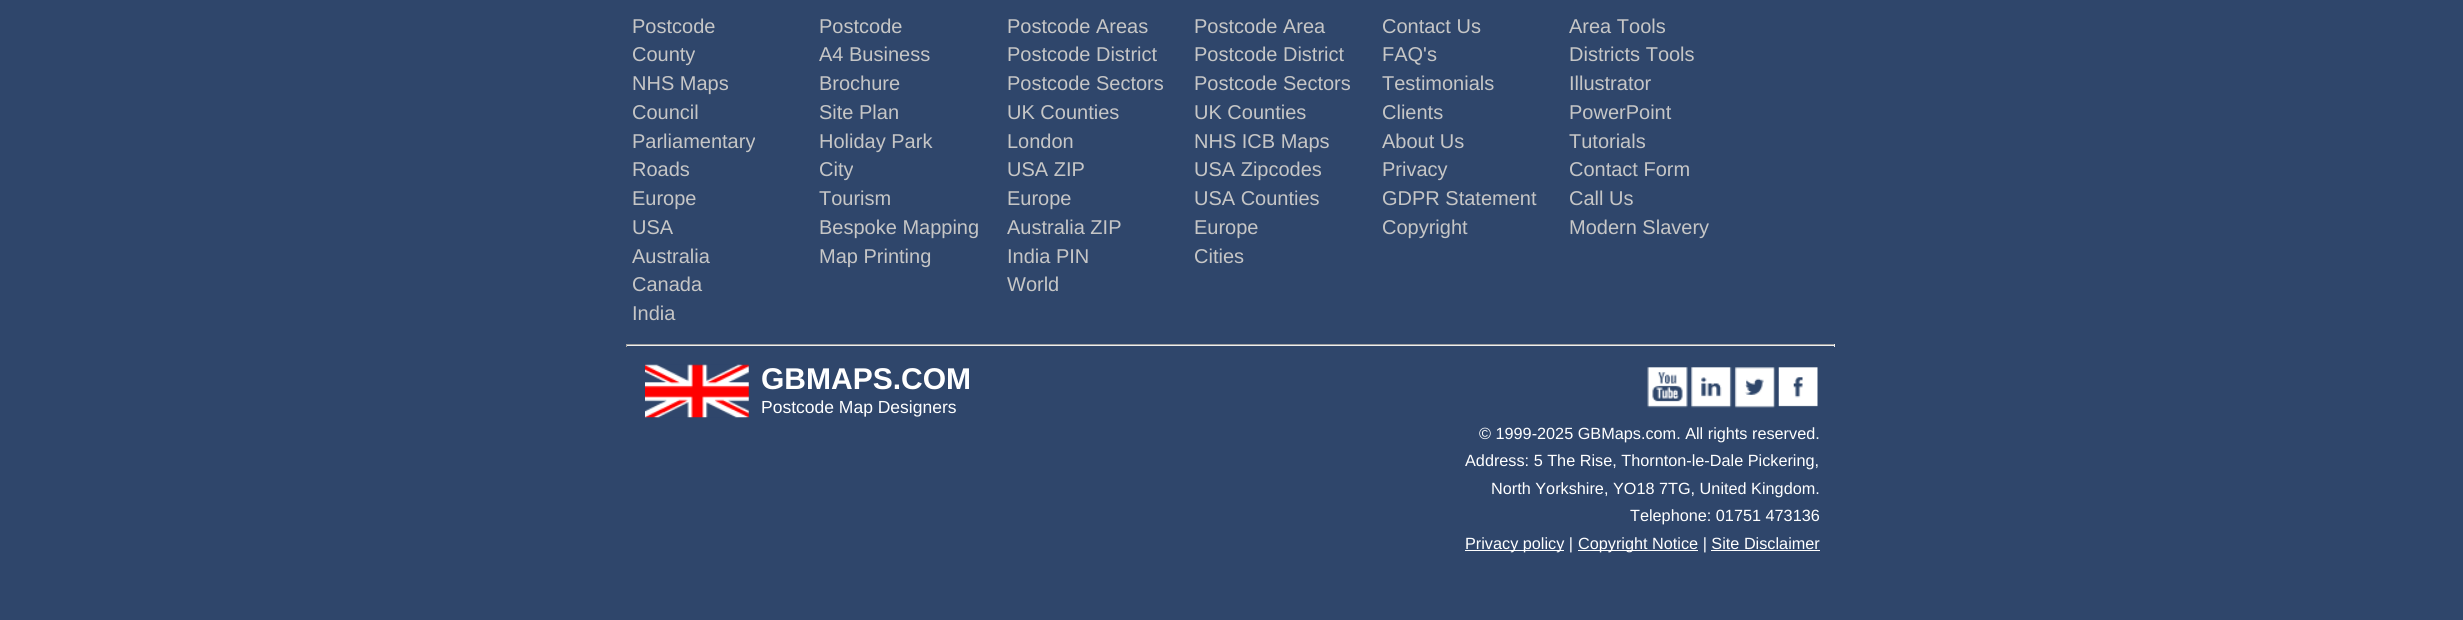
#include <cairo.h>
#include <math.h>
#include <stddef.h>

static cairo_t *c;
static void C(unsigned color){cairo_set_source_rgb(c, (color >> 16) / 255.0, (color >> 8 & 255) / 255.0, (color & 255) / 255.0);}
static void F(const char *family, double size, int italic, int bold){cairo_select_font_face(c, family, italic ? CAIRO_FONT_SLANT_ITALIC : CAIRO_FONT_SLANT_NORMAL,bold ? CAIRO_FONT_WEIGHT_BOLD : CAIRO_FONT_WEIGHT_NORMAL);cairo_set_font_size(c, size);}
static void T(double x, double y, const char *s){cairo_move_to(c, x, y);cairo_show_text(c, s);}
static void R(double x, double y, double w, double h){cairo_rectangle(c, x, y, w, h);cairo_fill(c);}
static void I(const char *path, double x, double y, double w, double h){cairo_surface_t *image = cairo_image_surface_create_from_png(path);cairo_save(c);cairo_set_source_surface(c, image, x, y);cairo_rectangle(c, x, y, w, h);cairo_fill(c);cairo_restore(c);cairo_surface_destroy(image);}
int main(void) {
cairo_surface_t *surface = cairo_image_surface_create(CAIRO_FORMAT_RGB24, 2463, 620);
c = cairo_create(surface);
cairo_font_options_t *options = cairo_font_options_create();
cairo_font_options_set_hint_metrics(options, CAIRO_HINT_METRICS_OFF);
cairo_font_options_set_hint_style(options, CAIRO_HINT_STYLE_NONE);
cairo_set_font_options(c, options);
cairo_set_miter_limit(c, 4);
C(0x2f466b);
cairo_paint(c);
F("Liberation Sans",20,0,0);
C(0xc6c6c6);
T(632,33,"Postcode");
T(632,61,"County");
T(632,90,"NHS Maps");
T(632,119,"Council");
T(632,148,"Parliamentary");
T(632,176,"Roads");
T(632,205,"Europe");
T(632,234,"USA");
T(632,263,"Australia");
T(632,291,"Canada");
T(632,320,"India");
T(819,33,"Postcode");
T(819,61,"A4 Business");
T(819,90,"Brochure");
T(819,119,"Site Plan");
T(819,148,"Holiday Park");
T(819,176,"City");
T(819,205,"Tourism");
T(819,234,"Bespoke Mapping");
T(819,263,"Map Printing");
T(1007,33,"Postcode Areas");
T(1007,61,"Postcode District");
T(1007,90,"Postcode Sectors");
T(1007,119,"UK Counties");
T(1007,148,"London");
T(1007,176,"USA ZIP");
T(1007,205,"Europe");
T(1007,234,"Australia ZIP");
T(1007,263,"India PIN");
T(1007,291,"World");
T(1194,33,"Postcode Area");
T(1194,61,"Postcode District");
T(1194,90,"Postcode Sectors");
T(1194,119,"UK Counties");
T(1194,148,"NHS ICB Maps");
T(1194,176,"USA Zipcodes");
T(1194,205,"USA Counties");
T(1194,234,"Europe");
T(1194,263,"Cities");
T(1382,33,"Contact Us");
T(1382,61,"FAQ's");
T(1382,90,"Testimonials");
T(1382,119,"Clients");
T(1382,148,"About Us");
T(1382,176,"Privacy");
T(1382,205,"GDPR Statement");
T(1382,234,"Copyright");
T(1569,33,"Area Tools");
T(1569,61,"Districts Tools");
T(1569,90,"Illustrator");
T(1569,119,"PowerPoint");
T(1569,148,"Tutorials");
T(1569,176,"Contact Form");
T(1569,205,"Call Us");
T(1569,234,"Modern Slavery");
C(0x9f9f9f);
R(626,344,1209,1);
C(0xeeeeee);
R(1834,344,1,3);
R(626,345,1209,1);
C(0x9f9f9f);
R(626,344,1,3);
I("1.png",645,364,104,54);
F("Liberation Sans",30,0,1);
C(0xffffff);
T(761,389,"GBMAPS.COM");
F("Liberation Sans",17.5,0,0);
T(761,413,"Postcode Map Designers");
I("2.png",1647,367,41,41);
I("3.png",1691,367,41,41);
I("4.png",1734,367,42,41);
I("5.png",1778,367,40,40);
F("Liberation Sans",16.25,0,0);
T(1479,439,"© 1999-2025 GBMaps.com. All rights reserved.");
T(1465,466,"Address: 5 The Rise, Thornton-le-Dale Pickering,");
T(1491,494,"North Yorkshire, YO18 7TG, United Kingdom.");
T(1630,521,"Telephone: 01751 473136");
R(1465,550,99,1);
T(1465,549,"Privacy policy |");
R(1578,550,120,1);
T(1578,549,"Copyright Notice | Site Disclaimer");
R(1711,550,109,1);
cairo_surface_write_to_png(surface, "o.png");
cairo_font_options_destroy(options);
cairo_destroy(c);
cairo_surface_destroy(surface);
return 0;
}
